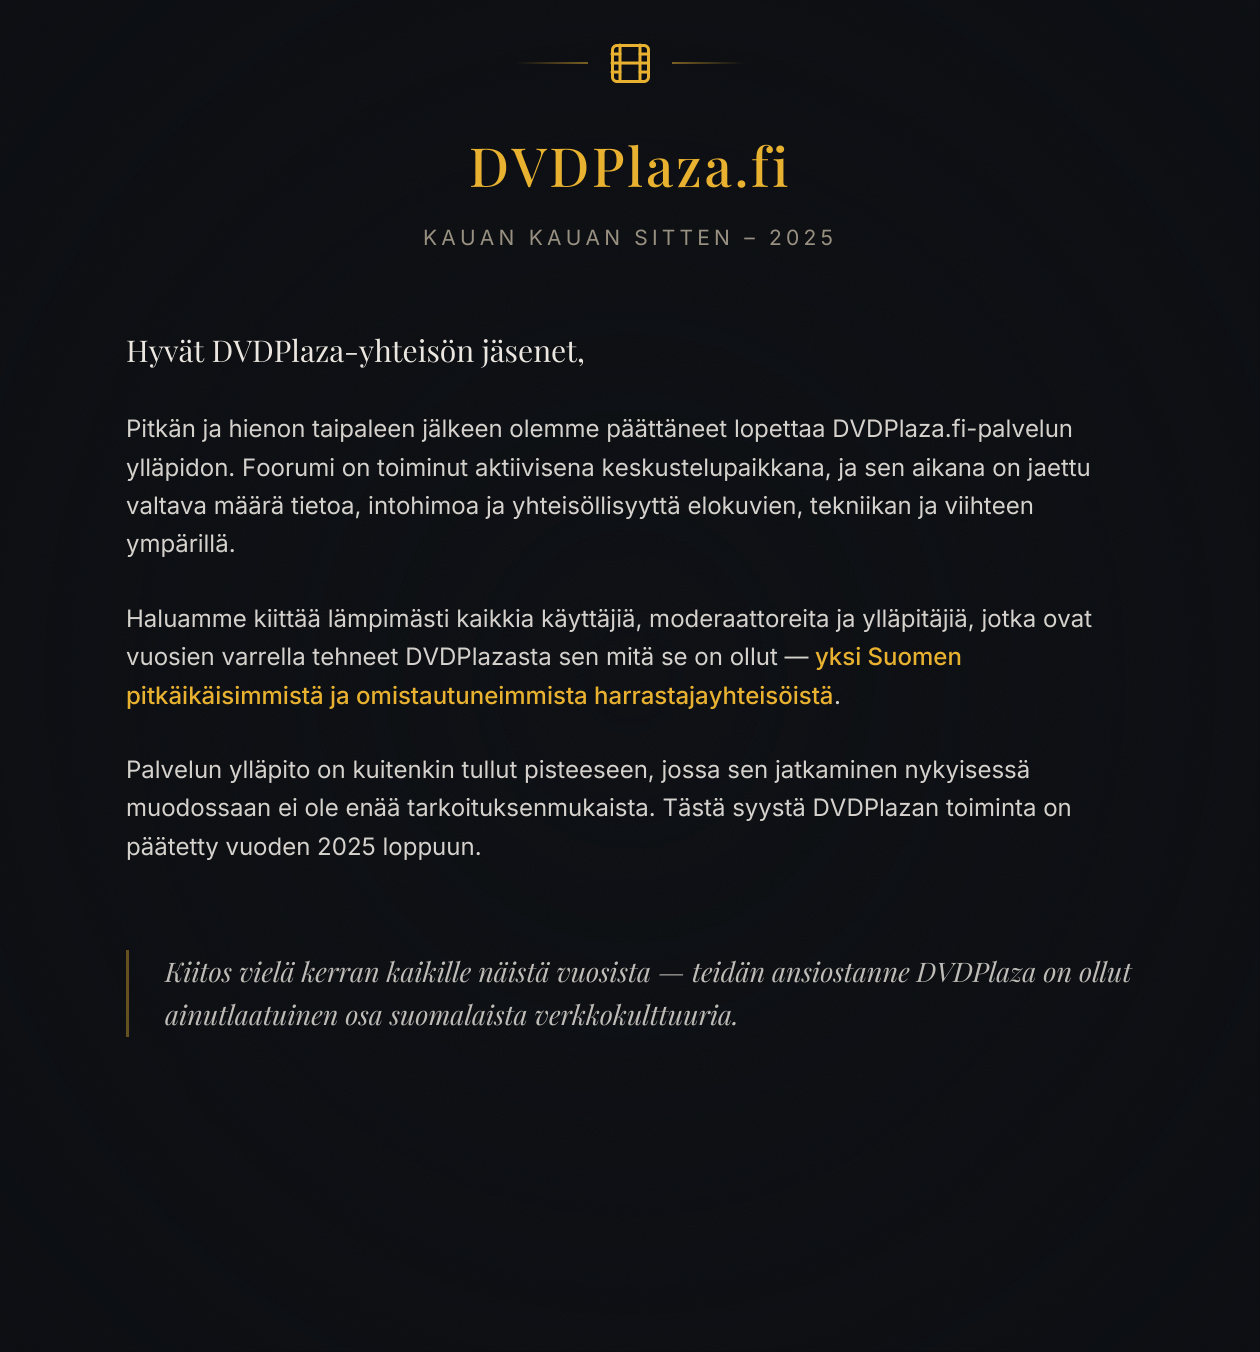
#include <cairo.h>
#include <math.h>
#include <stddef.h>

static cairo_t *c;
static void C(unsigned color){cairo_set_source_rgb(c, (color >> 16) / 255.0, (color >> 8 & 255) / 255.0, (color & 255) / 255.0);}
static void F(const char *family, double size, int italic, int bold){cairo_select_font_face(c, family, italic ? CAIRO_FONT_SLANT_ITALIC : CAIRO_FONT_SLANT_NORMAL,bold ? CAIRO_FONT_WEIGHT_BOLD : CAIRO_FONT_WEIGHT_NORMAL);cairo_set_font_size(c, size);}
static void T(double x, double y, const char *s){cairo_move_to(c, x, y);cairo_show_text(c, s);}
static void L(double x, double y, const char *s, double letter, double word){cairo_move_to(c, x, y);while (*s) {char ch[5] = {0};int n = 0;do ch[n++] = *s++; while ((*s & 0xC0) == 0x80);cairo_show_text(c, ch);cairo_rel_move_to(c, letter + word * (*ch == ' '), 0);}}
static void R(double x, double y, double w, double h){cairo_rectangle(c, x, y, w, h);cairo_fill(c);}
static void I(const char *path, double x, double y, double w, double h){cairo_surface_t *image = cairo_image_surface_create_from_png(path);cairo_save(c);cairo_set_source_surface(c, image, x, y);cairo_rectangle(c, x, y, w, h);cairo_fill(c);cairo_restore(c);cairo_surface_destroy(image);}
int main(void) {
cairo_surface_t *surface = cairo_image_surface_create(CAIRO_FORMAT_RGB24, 1260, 1352);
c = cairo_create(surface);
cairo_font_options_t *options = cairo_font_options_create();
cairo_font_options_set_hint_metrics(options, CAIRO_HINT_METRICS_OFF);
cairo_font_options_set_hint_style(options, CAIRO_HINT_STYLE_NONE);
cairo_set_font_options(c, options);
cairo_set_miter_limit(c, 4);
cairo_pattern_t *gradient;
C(0x0c0e12);
cairo_paint(c);
I("1.png",0,0,1259,1351);
gradient = cairo_pattern_create_radial(0,0,0,0,0,1);
cairo_pattern_set_matrix(gradient, &(cairo_matrix_t){1.0 / 891, 0, 0, 1.0 / 957, -1.0 * 630 / 891, -1.0 * 677 / 957});
cairo_pattern_add_color_stop_rgba(gradient,0,0.047,0.055,0.071,0);
cairo_pattern_add_color_stop_rgba(gradient,1,0.047,0.055,0.071,.7);
cairo_set_source(c,gradient);
cairo_pattern_destroy(gradient);
R(0,0,1259,1351);
gradient = cairo_pattern_create_linear(516,62,588,62);
cairo_pattern_add_color_stop_rgba(gradient,0,0.051,0.059,0.075,1);
cairo_pattern_add_color_stop_rgba(gradient,1,0.482,0.376,0.133,1);
cairo_set_source(c,gradient);
cairo_pattern_destroy(gradient);
R(516,62,72,2);
I("2.png",610,43,40,40);
gradient = cairo_pattern_create_linear(744,62,672,62);
cairo_pattern_add_color_stop_rgba(gradient,0,0.051,0.059,0.075,1);
cairo_pattern_add_color_stop_rgba(gradient,1,0.482,0.376,0.133,1);
cairo_set_source(c,gradient);
cairo_pattern_destroy(gradient);
R(672,62,72,2);
F("Playfair Display Medium",54,0,0);
C(0xe8b130);
L(469,187,"DVDPlaza.fi",2.75,0);
F("Inter",21,0,0);
C(0x989081);
L(423,245,"KAUAN KAUAN SITTEN – 2025",4.2,0);
F("Playfair Display",30,0,0);
C(0xebe7e0);
T(126,362,"Hyvät DVDPlaza-yhteisön jäsenet,");
F("Inter",24,0,0);
C(0xd5d1cc);
T(126,437,"Pitkän ja hienon taipaleen jälkeen olemme päättäneet lopettaa DVDPlaza.fi-palvelun");
T(126,476,"ylläpidon. Foorumi on toiminut aktiivisena keskustelupaikkana, ja sen aikana on jaettu");
T(126,514,"valtava määrä tietoa, intohimoa ja yhteisöllisyyttä elokuvien, tekniikan ja viihteen");
T(126,552,"ympärillä.");
T(126,627,"Haluamme kiittää lämpimästi kaikkia käyttäjiä, moderaattoreita ja ylläpitäjiä, jotka ovat");
T(126,665,"vuosien varrella tehneet DVDPlazasta sen mitä se on ollut —");
F("Inter Medium",24,0,0);
C(0xe8b130);
T(815,665,"yksi Suomen");
T(126,704,"pitkäikäisimmistä ja omistautuneimmista harrastajayhteisöistä");
F("Inter",24,0,0);
C(0xd5d1cc);
T(834,704,".");
T(126,778,"Palvelun ylläpito on kuitenkin tullut pisteeseen, jossa sen jatkaminen nykyisessä");
T(126,816,"muodossaan ei ole enää tarkoituksenmukaista. Tästä syystä DVDPlazan toiminta on");
T(126,855,"päätetty vuoden 2025 loppuun.");
cairo_set_source_rgba(c,0.91,0.694,0.188,0.4);
R(126,950,3,87);
F("Playfair Display",27,1,0);
C(0xbfbcb7);
T(165,982,"Kiitos vielä kerran kaikille näistä vuosista — teidän ansiostanne DVDPlaza on ollut");
T(165,1025,"ainutlaatuinen osa suomalaista verkkokulttuuria.");
cairo_surface_write_to_png(surface, "o.png");
cairo_font_options_destroy(options);
cairo_destroy(c);
cairo_surface_destroy(surface);
return 0;
}
